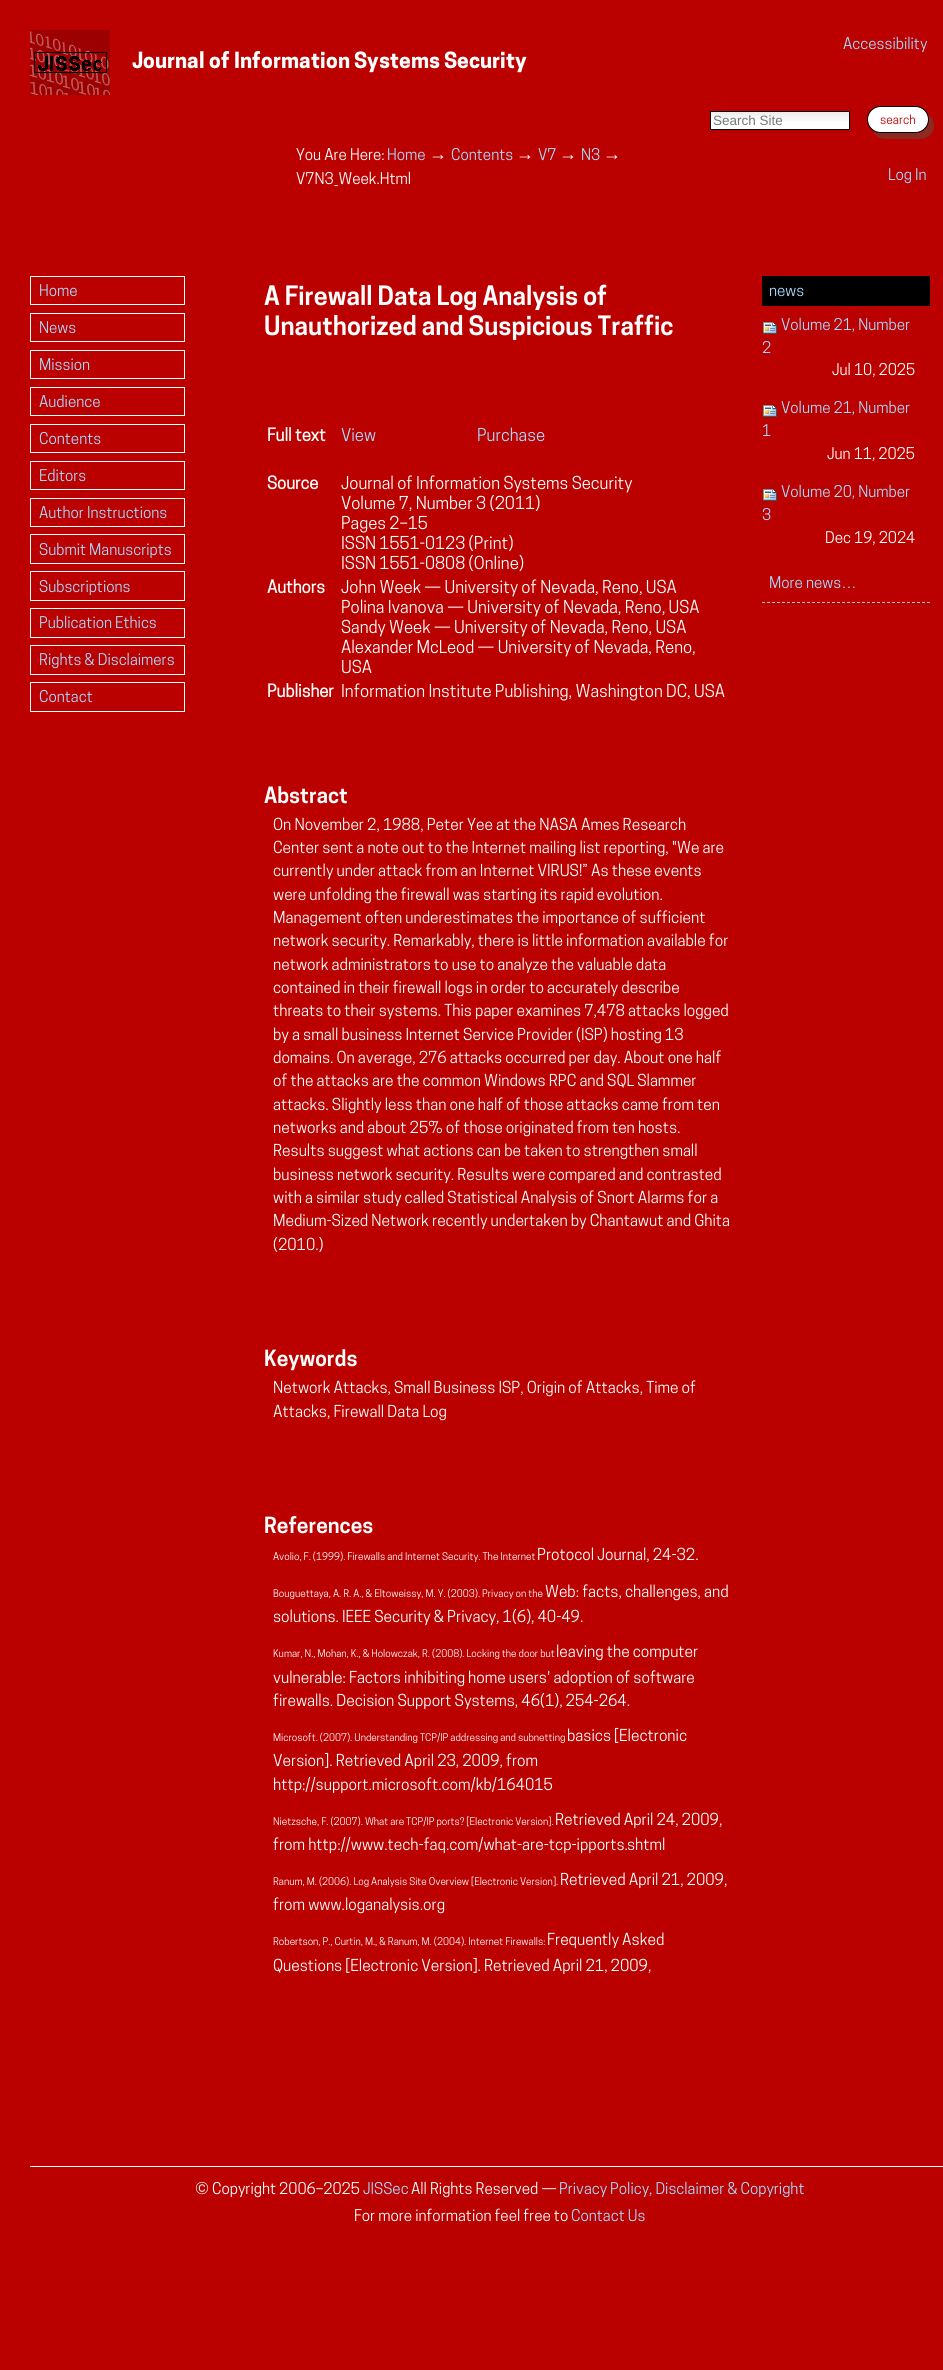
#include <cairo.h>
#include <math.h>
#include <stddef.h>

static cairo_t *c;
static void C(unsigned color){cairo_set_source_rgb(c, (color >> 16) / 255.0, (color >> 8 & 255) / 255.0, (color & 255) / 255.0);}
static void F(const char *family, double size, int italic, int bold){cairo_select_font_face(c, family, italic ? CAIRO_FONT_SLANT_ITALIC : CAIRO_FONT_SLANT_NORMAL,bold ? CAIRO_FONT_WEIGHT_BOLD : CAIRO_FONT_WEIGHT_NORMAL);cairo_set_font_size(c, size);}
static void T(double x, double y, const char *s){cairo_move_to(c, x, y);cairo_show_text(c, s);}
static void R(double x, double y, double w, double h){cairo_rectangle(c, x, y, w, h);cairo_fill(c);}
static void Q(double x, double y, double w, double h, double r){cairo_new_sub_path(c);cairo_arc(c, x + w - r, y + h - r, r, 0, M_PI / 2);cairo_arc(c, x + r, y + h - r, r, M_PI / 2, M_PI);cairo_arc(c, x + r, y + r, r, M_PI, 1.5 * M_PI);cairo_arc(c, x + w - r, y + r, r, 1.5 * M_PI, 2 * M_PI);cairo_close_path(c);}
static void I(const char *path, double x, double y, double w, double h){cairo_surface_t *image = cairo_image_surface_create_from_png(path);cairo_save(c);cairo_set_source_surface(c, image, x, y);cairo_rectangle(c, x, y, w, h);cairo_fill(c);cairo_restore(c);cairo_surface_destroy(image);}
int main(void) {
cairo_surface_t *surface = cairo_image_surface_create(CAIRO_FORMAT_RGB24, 943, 2370);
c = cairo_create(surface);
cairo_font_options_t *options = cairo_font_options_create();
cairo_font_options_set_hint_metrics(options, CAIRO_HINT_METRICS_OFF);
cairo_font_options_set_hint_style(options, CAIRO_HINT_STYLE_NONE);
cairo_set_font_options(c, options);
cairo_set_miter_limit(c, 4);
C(0xbb0000);
cairo_paint(c);
I("1.png",30,30,497,65);
F("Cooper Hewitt",15.25,0,0);
C(0xa8d9fd);
T(843,49,"Accessibility");
C(0xffffff);
R(711,121,138,8);
I("2.png",711,112,138,9);
cairo_rectangle(c,710.5,111.5,139,18);
C(0x000000);
cairo_set_line_width(c,1);
cairo_stroke(c);
F("Liberation Sans",13.5,0,0);
C(0x76797c);
T(713,125,"Search Site");
C(0x8a2a21);
cairo_new_path(c);
cairo_move_to(c,873,131);
cairo_curve_to(c,875,136,880,139,886,139);
cairo_line_to(c,920,139);
cairo_curve_to(c,928,139,934,133,934,126);
cairo_curve_to(c,934,121,932,117,928,114);
cairo_curve_to(c,929,116,929,118,929,120);
cairo_curve_to(c,929,127,923,133,916,133);
cairo_line_to(c,880,133);
cairo_curve_to(c,878,133,875,132,873,131);
cairo_close_path(c);
cairo_fill(c);
C(0xffffff);
Q(867.5,106.5,61,26,13);
cairo_fill_preserve(c);
C(0x000000);
cairo_stroke(c);
F("Cooper Hewitt",12,0,0);
C(0xbb0000);
T(880,124,"search");
F("Cooper Hewitt",15.25,0,0);
C(0xffffff);
T(296,160,"You Are Here:");
C(0xa8d9fd);
T(387,160,"Home");
F("Liberation Serif",18,0,0);
C(0xffffff);
T(429,160,"→");
F("Cooper Hewitt",15.25,0,0);
C(0xa8d9fd);
T(451,160,"Contents");
F("Liberation Serif",18,0,0);
C(0xffffff);
T(516,160,"→");
F("Cooper Hewitt",15.25,0,0);
C(0xa8d9fd);
T(538,160,"V7");
F("Liberation Serif",18,0,0);
C(0xffffff);
T(559,160,"→");
F("Cooper Hewitt",15.25,0,0);
C(0xa8d9fd);
T(581,160,"N3");
F("Liberation Serif",18,0,0);
C(0xffffff);
T(603,160,"→");
F("Cooper Hewitt",15.25,0,0);
T(296,184,"V7N3_Week.Html");
C(0xa8d9fd);
T(888,180,"Log In");
cairo_rectangle(c,30.5,276.5,154,28);
C(0xffffff);
cairo_stroke(c);
C(0xa8d9fd);
T(39,296,"Home");
cairo_rectangle(c,30.5,313.5,154,28);
C(0xffffff);
cairo_stroke(c);
C(0xa8d9fd);
T(39,333,"News");
cairo_rectangle(c,30.5,350.5,154,28);
C(0xffffff);
cairo_stroke(c);
C(0xa8d9fd);
T(39,370,"Mission");
cairo_rectangle(c,30.5,387.5,154,28);
C(0xffffff);
cairo_stroke(c);
C(0xa8d9fd);
T(39,407,"Audience");
cairo_rectangle(c,30.5,424.5,154,28);
C(0xffffff);
cairo_stroke(c);
C(0xa8d9fd);
T(39,444,"Contents");
cairo_rectangle(c,30.5,461.5,154,28);
C(0xffffff);
cairo_stroke(c);
C(0xa8d9fd);
T(39,481,"Editors");
cairo_rectangle(c,30.5,498.5,154,28);
C(0xffffff);
cairo_stroke(c);
C(0xa8d9fd);
T(39,518,"Author Instructions");
cairo_rectangle(c,30.5,534.5,154,29);
C(0xffffff);
cairo_stroke(c);
C(0xa8d9fd);
T(39,555,"Submit Manuscripts");
cairo_rectangle(c,30.5,571.5,154,29);
C(0xffffff);
cairo_stroke(c);
C(0xa8d9fd);
T(39,592,"Subscriptions");
cairo_rectangle(c,30.5,608.5,154,29);
C(0xffffff);
cairo_stroke(c);
C(0xa8d9fd);
T(39,628,"Publication Ethics");
cairo_rectangle(c,30.5,645.5,154,29);
C(0xffffff);
cairo_stroke(c);
C(0xa8d9fd);
T(39,665,"Rights & Disclaimers");
cairo_rectangle(c,30.5,682.5,154,29);
C(0xffffff);
cairo_stroke(c);
C(0xa8d9fd);
T(39,702,"Contact");
F("Cooper Hewitt SemiBold",25.1,0,0);
C(0xffffff);
T(264,305,"A Firewall Data Log Analysis of");
T(264,335,"Unauthorized and Suspicious Traffic");
F("Cooper Hewitt",16.75,0,1);
T(267,441,"Full text");
F("Cooper Hewitt",16.75,0,0);
C(0xa8d9fd);
T(341,441,"View");
T(477,441,"Purchase");
F("Cooper Hewitt",16.75,0,1);
C(0xffffff);
T(267,489,"Source");
F("Cooper Hewitt",16.75,0,0);
T(341,489,"Journal of Information Systems Security");
T(341,509,"Volume 7, Number 3 (2011)");
T(341,529,"Pages 2–15");
T(341,549,"ISSN 1551-0123 (Print)");
T(341,569,"ISSN 1551-0808 (Online)");
F("Cooper Hewitt",16.75,0,1);
T(267,593,"Authors");
F("Cooper Hewitt",16.75,0,0);
T(341,593,"John Week — University of Nevada, Reno, USA");
T(341,613,"Polina Ivanova — University of Nevada, Reno, USA");
T(341,633,"Sandy Week — University of Nevada, Reno, USA");
T(341,653,"Alexander McLeod — University of Nevada, Reno,");
T(341,673,"USA");
F("Cooper Hewitt",16.75,0,1);
T(267,697,"Publisher");
F("Cooper Hewitt",16.75,0,0);
T(341,697,"Information Institute Publishing, Washington DC, USA");
F("Cooper Hewitt SemiBold",21,0,0);
T(264,803,"Abstract");
F("Cooper Hewitt",15.55,0,0);
T(273,830,"On November 2, 1988, Peter Yee at the NASA Ames Research");
T(273,853,"Center sent a note out to the Internet mailing list reporting, \"We are");
T(273,876,"currently under attack from an Internet VIRUS!” As these events");
T(273,900,"were unfolding the firewall was starting its rapid evolution.");
T(273,923,"Management often underestimates the importance of sufficient");
T(273,946,"network security. Remarkably, there is little information available for");
T(273,970,"network administrators to use to analyze the valuable data");
T(273,993,"contained in their firewall logs in order to accurately describe");
T(273,1016,"threats to their systems. This paper examines 7,478 attacks logged");
T(273,1040,"by a small business Internet Service Provider (ISP) hosting 13");
T(273,1063,"domains. On average, 276 attacks occurred per day. About one half");
T(273,1086,"of the attacks are the common Windows RPC and SQL Slammer");
T(273,1110,"attacks. Slightly less than one half of those attacks came from ten");
T(273,1133,"networks and about 25% of those originated from ten hosts.");
T(273,1156,"Results suggest what actions can be taken to strengthen small");
T(273,1180,"business network security. Results were compared and contrasted");
T(273,1203,"with a similar study called Statistical Analysis of Snort Alarms for a");
T(273,1226,"Medium-Sized Network recently undertaken by Chantawut and Ghita");
T(273,1250,"(2010.)");
F("Cooper Hewitt SemiBold",21,0,0);
T(264,1366,"Keywords");
F("Cooper Hewitt",15.55,0,0);
T(273,1393,"Network Attacks, Small Business ISP, Origin of Attacks, Time of");
T(273,1417,"Attacks, Firewall Data Log");
F("Cooper Hewitt SemiBold",21,0,0);
T(264,1533,"References");
F("Cooper Hewitt",10,0,0);
T(273,1560,"Avolio, F. (1999). Firewalls and Internet Security. The Internet");
F("Cooper Hewitt",15.55,0,0);
T(537,1560,"Protocol Journal, 24-32.");
F("Cooper Hewitt",10,0,0);
T(273,1597,"Bouguettaya, A. R. A., & Eltoweissy, M. Y. (2003). Privacy on the");
F("Cooper Hewitt",15.55,0,0);
T(545,1597,"Web: facts, challenges, and");
T(273,1622,"solutions. IEEE Security & Privacy, 1(6), 40-49.");
F("Cooper Hewitt",10,0,0);
T(273,1657,"Kumar, N., Mohan, K., & Holowczak, R. (2008). Locking the door but");
F("Cooper Hewitt",15.55,0,0);
T(556,1657,"leaving the computer");
T(273,1683,"vulnerable: Factors inhibiting home users' adoption of software");
T(273,1706,"firewalls. Decision Support Systems, 46(1), 254-264.");
F("Cooper Hewitt",10,0,0);
T(273,1741,"Microsoft. (2007). Understanding TCP/IP addressing and subnetting");
F("Cooper Hewitt",15.55,0,0);
T(567,1741,"basics [Electronic");
T(273,1766,"Version]. Retrieved April 23, 2009, from");
T(273,1790,"http://support.microsoft.com/kb/164015");
F("Cooper Hewitt",10,0,0);
T(273,1825,"Nietzsche, F. (2007). What are TCP/IP ports? [Electronic Version].");
F("Cooper Hewitt",15.55,0,0);
T(555,1825,"Retrieved April 24, 2009,");
T(273,1850,"from http://www.tech-faq.com/what-are-tcp-ipports.");
T(627,1850,"shtml");
F("Cooper Hewitt",10,0,0);
T(273,1885,"Ranum, M. (2006). Log Analysis Site Overview [Electronic Version].");
F("Cooper Hewitt",15.55,0,0);
T(560,1885,"Retrieved April 21, 2009,");
T(273,1910,"from www.loganalysis.org");
F("Cooper Hewitt",10,0,0);
T(273,1945,"Robertson, P., Curtin, M., & Ranum, M. (2004). Internet Firewalls:");
F("Cooper Hewitt",15.55,0,0);
T(547,1945,"Frequently Asked");
T(273,1971,"Questions [Electronic Version]. Retrieved April 21, 2009,");
C(0x000000);
R(762,276,168,30);
F("Cooper Hewitt",15.25,0,0);
C(0xa8d9fd);
T(769,296,"news");
I("3.png",763,322,14,12);
T(781,330,"Volume 21, Number");
T(762,353,"2");
C(0xffffff);
T(832,375,"Jul 10, 2025");
I("3.png",763,405,14,12);
C(0xa8d9fd);
T(781,413,"Volume 21, Number");
T(762,436,"1");
C(0xffffff);
T(827,459,"Jun 11, 2025");
I("3.png",763,489,14,12);
C(0xa8d9fd);
T(781,497,"Volume 20, Number");
T(762,520,"3");
C(0xffffff);
T(825,543,"Dec 19, 2024");
cairo_new_path(c);
cairo_move_to(c,762,602.5);
cairo_line_to(c,930,602.5);
C(0xc9c4c0);
cairo_set_dash(c,(double[]){3,2},2,0);
cairo_stroke(c);
C(0xa8d9fd);
T(769,588,"More news…");
C(0xffffff);
R(30,2166,913,1);
T(195,2194,"© Copyright 2006–2025");
C(0xa8d9fd);
T(363,2194,"JISSec");
C(0xffffff);
T(411,2194,"All Rights Reserved —");
C(0xa8d9fd);
T(559,2194,"Privacy Policy, Disclaimer & Copyright");
C(0xffffff);
T(354,2221,"For more information feel free to");
C(0xa8d9fd);
T(571,2221,"Contact Us");
cairo_surface_write_to_png(surface, "o.png");
cairo_font_options_destroy(options);
cairo_destroy(c);
cairo_surface_destroy(surface);
return 0;
}
